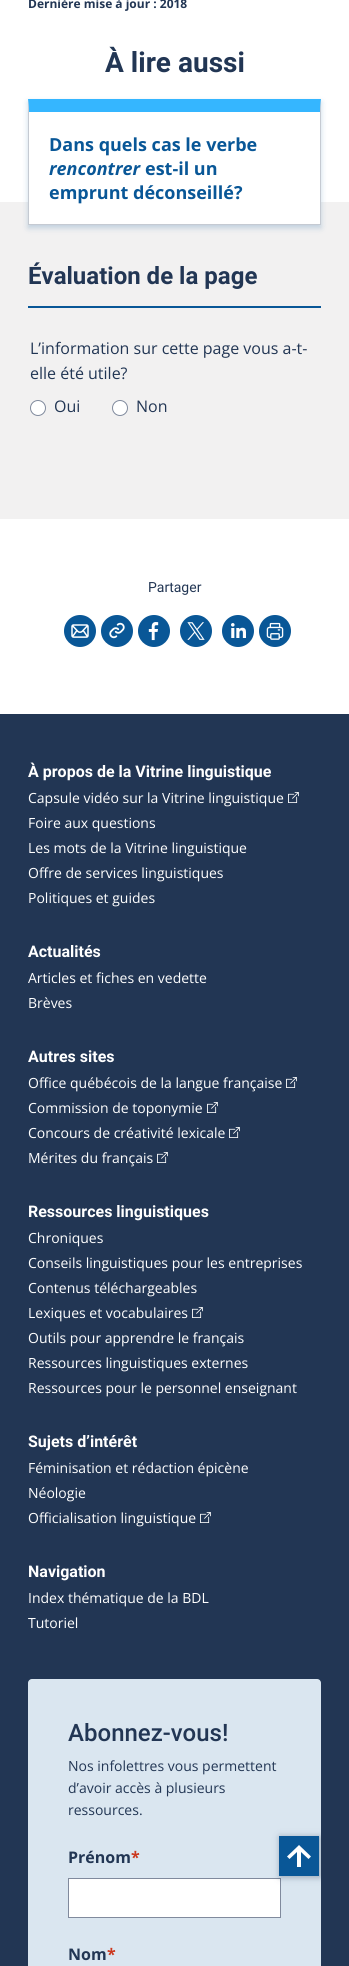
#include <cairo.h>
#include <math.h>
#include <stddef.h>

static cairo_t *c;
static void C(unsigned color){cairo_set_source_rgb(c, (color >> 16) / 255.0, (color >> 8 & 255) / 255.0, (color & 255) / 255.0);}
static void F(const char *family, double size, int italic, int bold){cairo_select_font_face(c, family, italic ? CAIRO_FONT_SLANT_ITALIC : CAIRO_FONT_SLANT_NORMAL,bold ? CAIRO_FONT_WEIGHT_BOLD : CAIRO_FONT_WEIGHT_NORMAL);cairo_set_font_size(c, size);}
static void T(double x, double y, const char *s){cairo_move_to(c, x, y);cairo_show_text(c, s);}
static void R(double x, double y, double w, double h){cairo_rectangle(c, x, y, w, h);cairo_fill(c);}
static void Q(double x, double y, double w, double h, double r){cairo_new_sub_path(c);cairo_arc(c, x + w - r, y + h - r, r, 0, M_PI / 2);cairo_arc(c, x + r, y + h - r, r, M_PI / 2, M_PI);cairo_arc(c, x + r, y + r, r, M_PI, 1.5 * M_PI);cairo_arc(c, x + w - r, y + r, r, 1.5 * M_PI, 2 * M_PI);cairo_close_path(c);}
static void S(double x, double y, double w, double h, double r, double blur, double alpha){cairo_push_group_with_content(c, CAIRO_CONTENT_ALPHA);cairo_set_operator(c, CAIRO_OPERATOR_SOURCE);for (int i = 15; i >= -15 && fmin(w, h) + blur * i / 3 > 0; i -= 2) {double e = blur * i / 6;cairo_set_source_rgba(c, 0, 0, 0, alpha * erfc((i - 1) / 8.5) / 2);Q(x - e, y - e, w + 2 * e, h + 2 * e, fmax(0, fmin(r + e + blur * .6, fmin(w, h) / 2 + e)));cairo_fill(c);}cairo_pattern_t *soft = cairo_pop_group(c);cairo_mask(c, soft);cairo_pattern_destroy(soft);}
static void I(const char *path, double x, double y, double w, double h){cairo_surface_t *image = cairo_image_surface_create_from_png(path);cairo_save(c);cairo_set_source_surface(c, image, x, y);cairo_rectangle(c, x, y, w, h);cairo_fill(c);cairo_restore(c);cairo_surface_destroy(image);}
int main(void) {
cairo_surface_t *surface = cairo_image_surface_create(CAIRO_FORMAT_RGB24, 349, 1966);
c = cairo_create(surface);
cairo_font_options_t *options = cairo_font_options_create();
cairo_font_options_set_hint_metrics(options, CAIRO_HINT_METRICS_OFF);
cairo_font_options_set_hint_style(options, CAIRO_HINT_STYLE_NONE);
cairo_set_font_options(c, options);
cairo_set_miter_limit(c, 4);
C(0xffffff);
cairo_paint(c);
F("Open Sans",12,0,1);
C(0x223654);
T(28,8,"Dernière mise à jour : 2018");
F("Roboto",28,0,1);
T(105,72,"À lire aussi");
C(0xf2f1f1);
R(0,202,349,317);
C(0x095797);
S(28,102,293,126,0,3,.22);
C(0xffffff);
R(29,112,291,112);
C(0x35b6ff);
cairo_new_path(c);
cairo_move_to(c,28,99);
cairo_line_to(c,321,99);
cairo_line_to(c,320,112);
cairo_line_to(c,29,112);
cairo_close_path(c);
cairo_fill(c);
C(0xc5cad2);
cairo_new_path(c);
cairo_move_to(c,321,99);
cairo_line_to(c,321,225);
cairo_line_to(c,320,224);
cairo_line_to(c,320,112);
cairo_close_path(c);
cairo_fill(c);
R(28,224,293,1);
cairo_new_path(c);
cairo_move_to(c,28,225);
cairo_line_to(c,28,99);
cairo_line_to(c,29,112);
cairo_line_to(c,29,224);
cairo_close_path(c);
cairo_fill(c);
F("Open Sans",18,0,1);
C(0x095797);
T(49,151,"Dans quels cas le verbe");
F("Open Sans",18,1,1);
T(49,175,"rencontrer");
F("Open Sans",18,0,1);
T(145,175,"est-il un");
T(49,199,"emprunt déconseillé?");
R(28,306,293,2);
F("Roboto",24,0,1);
C(0x223654);
T(28,284,"Évaluation de la page");
F("Open Sans",16,0,0);
T(30,354,"L’information sur cette page vous a-t-");
T(30,379,"elle été utile?");
C(0xffffff);
cairo_new_path(c);
cairo_arc(c,38,408,7.5,0,2 * M_PI);
cairo_fill_preserve(c);
C(0x808a9d);
cairo_set_line_width(c,1);
cairo_stroke(c);
C(0x223654);
T(54,412,"Oui");
C(0xffffff);
cairo_new_path(c);
cairo_arc(c,120,408,7.5,0,2 * M_PI);
cairo_fill_preserve(c);
C(0x808a9d);
cairo_stroke(c);
C(0x223654);
T(136,412,"Non");
F("Roboto",14,0,0);
T(148,592,"Partager");
I("1.png",64,615,32,32);
I("2.png",101,615,32,32);
I("3.png",138,615,32,32);
I("4.png",180,615,32,32);
I("5.png",222,615,32,32);
I("6.png",259,615,32,32);
R(0,714,349,1252);
F("Roboto",16,0,1);
C(0xffffff);
T(28,777,"À propos de la Vitrine linguistique");
F("Open Sans",14,0,0);
T(28,803,"Capsule vidéo sur la Vitrine linguistique");
I("7.png",288,792,11,11);
T(28,828,"Foire aux questions");
T(28,853,"Les mots de la Vitrine linguistique");
T(28,878,"Offre de services linguistiques");
T(28,903,"Politiques et guides");
F("Roboto",16,0,1);
T(28,957,"Actualités");
F("Open Sans",14,0,0);
T(28,983,"Articles et fiches en vedette");
T(28,1008,"Brèves");
F("Roboto",16,0,1);
T(28,1062,"Autres sites");
F("Open Sans",14,0,0);
T(28,1088,"Office québécois de la langue française");
I("7.png",286,1077,11,11);
T(28,1113,"Commission de toponymie");
I("7.png",207,1102,11,11);
T(28,1138,"Concours de créativité lexicale");
I("7.png",229,1127,11,11);
T(28,1163,"Mérites du français");
I("7.png",157,1152,11,11);
F("Roboto",16,0,1);
T(28,1217,"Ressources linguistiques");
F("Open Sans",14,0,0);
T(28,1243,"Chroniques");
T(28,1268,"Conseils linguistiques pour les entreprises");
T(28,1293,"Contenus téléchargeables");
T(28,1318,"Lexiques et vocabulaires");
I("7.png",192,1307,11,11);
T(28,1343,"Outils pour apprendre le français");
T(28,1368,"Ressources linguistiques externes");
T(28,1393,"Ressources pour le personnel enseignant");
F("Roboto",16,0,1);
T(28,1447,"Sujets d’intérêt");
F("Open Sans",14,0,0);
T(28,1473,"Féminisation et rédaction épicène");
T(28,1498,"Néologie");
T(28,1523,"Officialisation linguistique");
I("7.png",200,1512,11,11);
F("Roboto",16,0,1);
T(28,1577,"Navigation");
F("Open Sans",14,0,0);
T(28,1603,"Index thématique de la BDL");
T(28,1628,"Tutoriel");
C(0xdae6f0);
Q(28,1679,293,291,4);
cairo_fill(c);
F("Roboto Medium",24,0,0);
C(0x223654);
T(68,1741,"Abonnez-vous!");
F("Open Sans",14,0,0);
T(68,1771,"Nos infolettres vous permettent");
T(68,1793,"d’avoir accès à plusieurs");
T(68,1815,"ressources.");
F("Open Sans",16,0,1);
T(68,1863,"Prénom");
C(0xcb381f);
T(131,1863,"*");
C(0xffffff);
cairo_rectangle(c,68.5,1878.5,212,39);
cairo_fill_preserve(c);
C(0x808a9d);
cairo_stroke(c);
C(0x223654);
T(68,1960,"Nom");
C(0xcb381f);
T(107,1960,"*");
C(0x223654);
S(280,1837,40,40,0,3.5,.4);
C(0x095797);
R(279,1836,40,40);
C(0xffffff);
cairo_new_path(c);
cairo_move_to(c,297.5,1846.5);
cairo_line_to(c,287,1856.5);
cairo_line_to(c,289.5,1859);
cairo_line_to(c,297,1852);
cairo_line_to(c,297,1867);
cairo_line_to(c,301,1867);
cairo_line_to(c,301,1852);
cairo_line_to(c,308.5,1859);
cairo_line_to(c,311,1856.5);
cairo_line_to(c,299,1845);
cairo_close_path(c);
cairo_fill(c);
cairo_surface_write_to_png(surface, "o.png");
cairo_font_options_destroy(options);
cairo_destroy(c);
cairo_surface_destroy(surface);
return 0;
}
